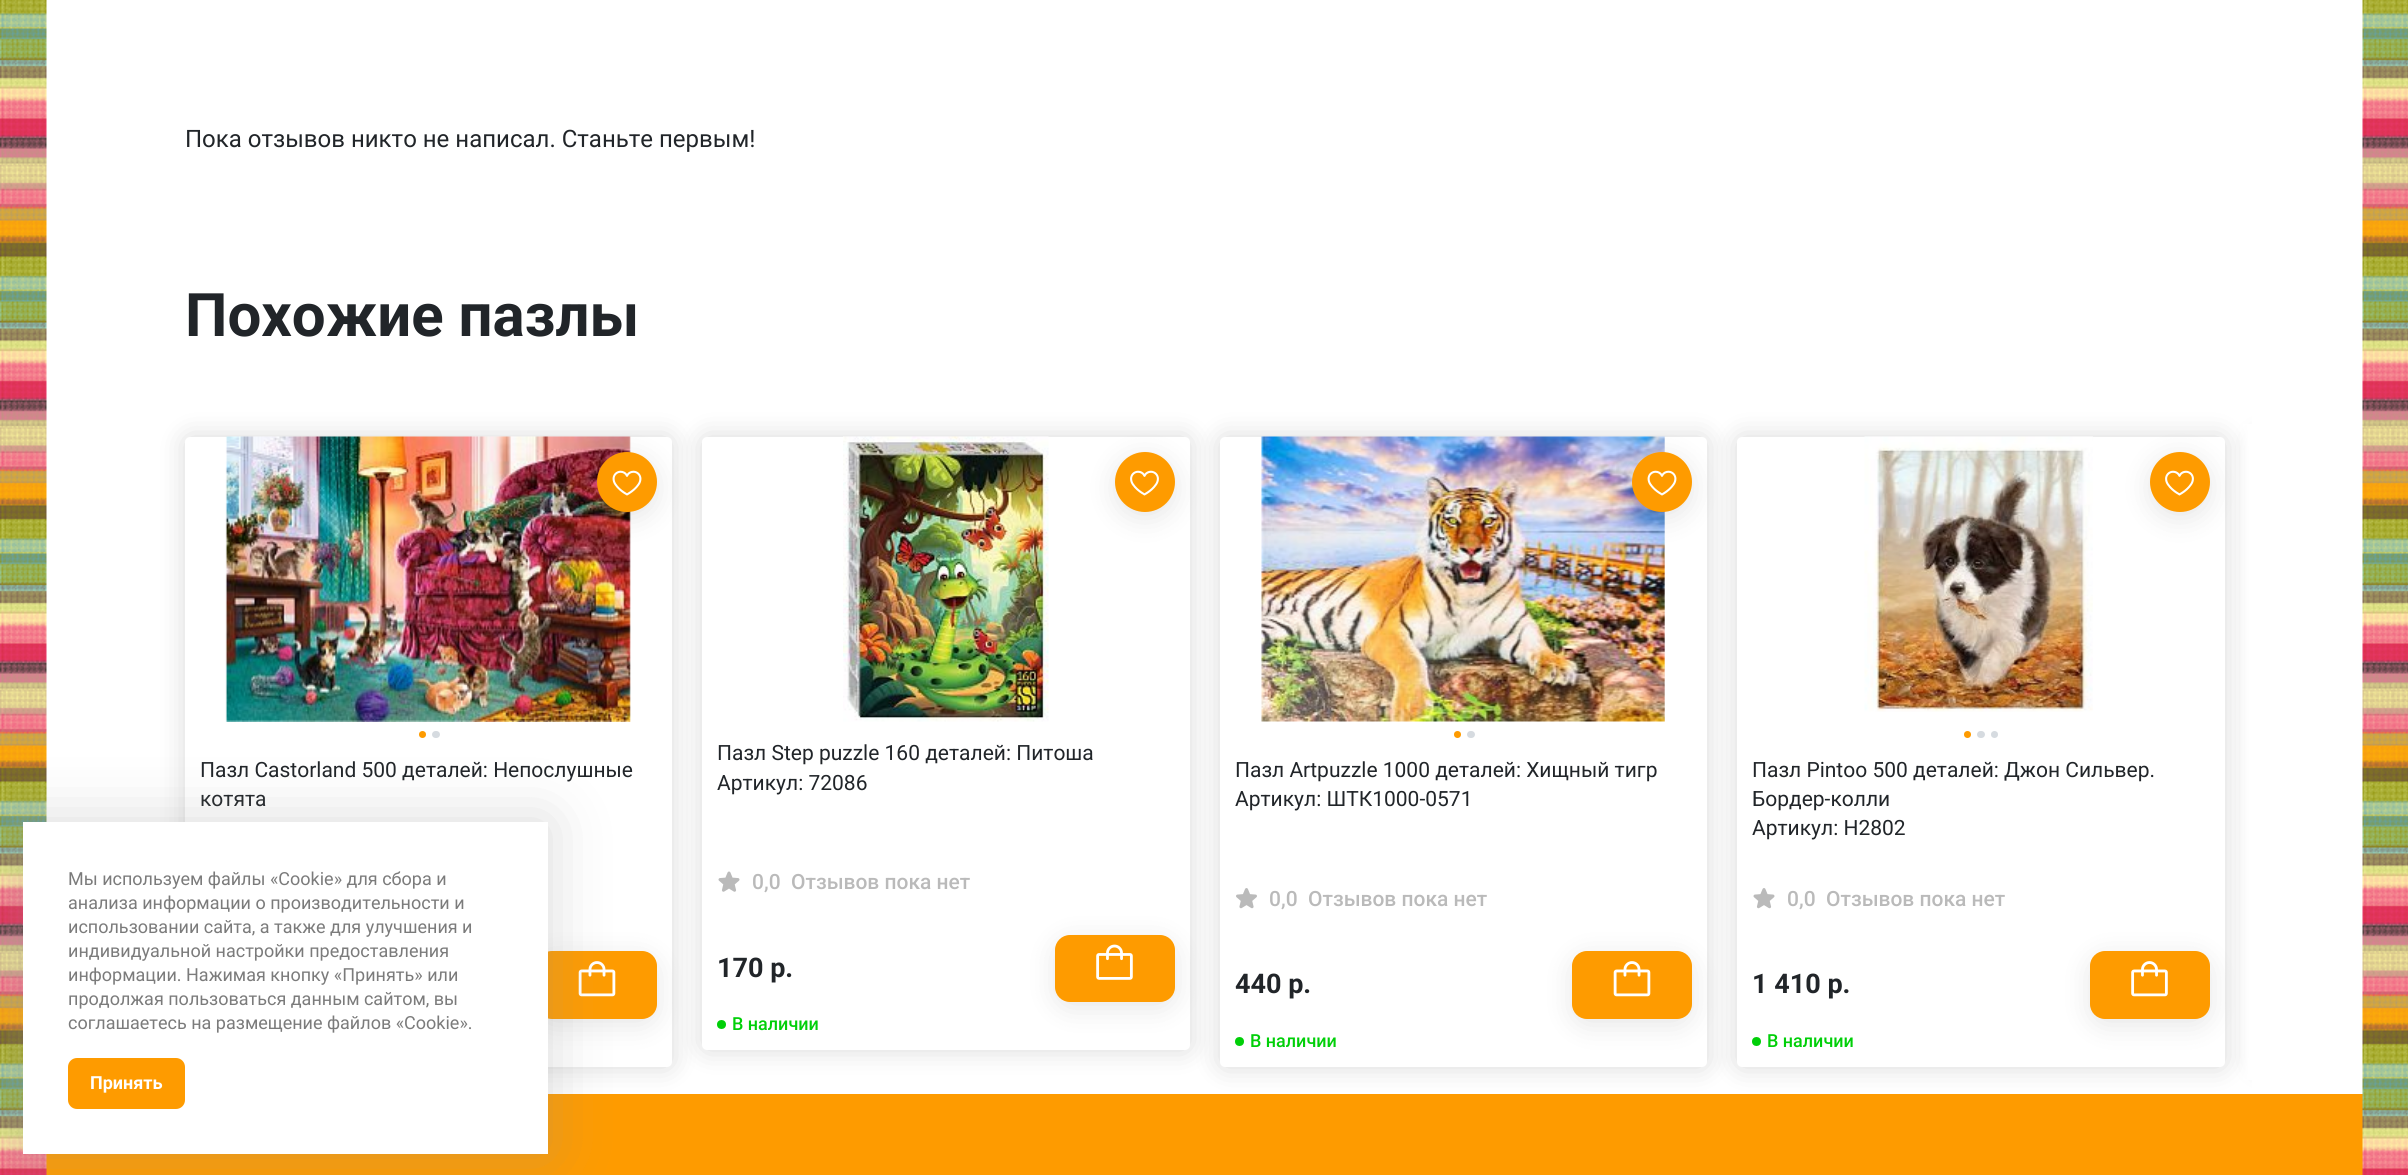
#include <cairo.h>
#include <math.h>
#include <stddef.h>

static cairo_t *c;
static void C(unsigned color){cairo_set_source_rgb(c, (color >> 16) / 255.0, (color >> 8 & 255) / 255.0, (color & 255) / 255.0);}
static void F(const char *family, double size, int italic, int bold){cairo_select_font_face(c, family, italic ? CAIRO_FONT_SLANT_ITALIC : CAIRO_FONT_SLANT_NORMAL,bold ? CAIRO_FONT_WEIGHT_BOLD : CAIRO_FONT_WEIGHT_NORMAL);cairo_set_font_size(c, size);}
static void T(double x, double y, const char *s){cairo_move_to(c, x, y);cairo_show_text(c, s);}
static void R(double x, double y, double w, double h){cairo_rectangle(c, x, y, w, h);cairo_fill(c);}
static void Q(double x, double y, double w, double h, double r){cairo_new_sub_path(c);cairo_arc(c, x + w - r, y + h - r, r, 0, M_PI / 2);cairo_arc(c, x + r, y + h - r, r, M_PI / 2, M_PI);cairo_arc(c, x + r, y + r, r, M_PI, 1.5 * M_PI);cairo_arc(c, x + w - r, y + r, r, 1.5 * M_PI, 2 * M_PI);cairo_close_path(c);}
static void S(double x, double y, double w, double h, double r, double blur, double alpha){cairo_push_group_with_content(c, CAIRO_CONTENT_ALPHA);cairo_set_operator(c, CAIRO_OPERATOR_SOURCE);for (int i = 15; i >= -15 && fmin(w, h) + blur * i / 3 > 0; i -= 2) {double e = blur * i / 6;cairo_set_source_rgba(c, 0, 0, 0, alpha * erfc((i - 1) / 8.5) / 2);Q(x - e, y - e, w + 2 * e, h + 2 * e, fmax(0, fmin(r + e + blur * .6, fmin(w, h) / 2 + e)));cairo_fill(c);}cairo_pattern_t *soft = cairo_pop_group(c);cairo_mask(c, soft);cairo_pattern_destroy(soft);}
static void I(const char *path, double x, double y, double w, double h){cairo_surface_t *image = cairo_image_surface_create_from_png(path);cairo_save(c);cairo_set_source_surface(c, image, x, y);cairo_rectangle(c, x, y, w, h);cairo_fill(c);cairo_restore(c);cairo_surface_destroy(image);}
int main(void) {
cairo_surface_t *surface = cairo_image_surface_create(CAIRO_FORMAT_RGB24, 2408, 1175);
c = cairo_create(surface);
cairo_font_options_t *options = cairo_font_options_create();
cairo_font_options_set_hint_metrics(options, CAIRO_HINT_METRICS_OFF);
cairo_font_options_set_hint_style(options, CAIRO_HINT_STYLE_NONE);
cairo_set_font_options(c, options);
cairo_set_miter_limit(c, 4);
cairo_pattern_t *gradient;
C(0xffffff);
cairo_paint(c);
C(0xfe9b00);
R(46,1094,2317,81);
I("1.png",0,0,47,1175);
F("Roboto",24,0,0);
C(0x212529);
T(185,147,"Пока отзывов никто не написал. Станьте первым!");
F("Roboto",60,0,1);
T(185,336,"Похожие пазлы");
C(0x000000);
S(185,437,487,630,5,13.5,.15);
C(0xffffff);
Q(185,437,487,630,5);
cairo_fill(c);
I("3.png",225,436,406,286);
C(0x000000);
S(597,458,60,60,30,13.5,.1);
C(0xfe9b00);
cairo_arc(c,627,482,30,0,2 * M_PI);
cairo_fill(c);
I("2.png",612,470,30,26);
cairo_arc(c,422.5,734.5,3.5,0,2 * M_PI);
cairo_fill(c);
C(0xd6dbe0);
Q(432,731,8,7,3.5);
cairo_fill(c);
F("Roboto",21,0,0);
C(0x212529);
T(200,777,"Пазл Castorland 500 деталей: Непослушные");
T(200,806,"котята");
C(0x000000);
S(537,957,120,68,15,13.5,.1);
C(0xfe9b00);
Q(537,951,120,68,15);
cairo_fill(c);
I("4.png",578,961,38,36);
C(0x000000);
S(702,437,488,613,5,13.5,.15);
C(0xffffff);
Q(702,437,488,613,5);
cairo_fill(c);
I("5.png",843,436,206,286);
C(0x000000);
S(1115,458,60,60,30,13.5,.1);
C(0xfe9b00);
cairo_arc(c,1145,482,30,0,2 * M_PI);
cairo_fill(c);
I("6.png",1130,470,29,26);
C(0x212529);
T(717,760,"Пазл Step puzzle 160 деталей: Питоша");
T(717,790,"Артикул: 72086");
I("7.png",718,871,22,21);
F("Roboto Medium",21,0,0);
C(0xbababa);
T(752,889,"0,0");
T(791,889,"Отзывов пока нет");
F("Roboto",27,0,1);
C(0x212529);
T(717,977,"170 р.");
C(0x000000);
S(1055,941,120,67,15,13.5,.1);
C(0xfe9b00);
Q(1055,935,120,67,15);
cairo_fill(c);
I("8.png",1096,944,37,36);
C(0x00cf08);
cairo_arc(c,721.5,1024.5,4.5,0,2 * M_PI);
cairo_fill(c);
F("Roboto Medium",18,0,0);
T(732,1030,"В наличии");
C(0x000000);
S(1220,437,487,630,5,13.5,.15);
C(0xffffff);
Q(1220,437,487,630,5);
cairo_fill(c);
I("9.png",1261,436,404,286);
C(0x000000);
S(1632,458,60,60,30,13.5,.1);
C(0xfe9b00);
cairo_arc(c,1662,482,30,0,2 * M_PI);
cairo_fill(c);
I("2.png",1647,470,30,26);
cairo_arc(c,1457.5,734.5,3.5,0,2 * M_PI);
cairo_fill(c);
C(0xd6dbe0);
Q(1467,731,8,7,3.5);
cairo_fill(c);
F("Roboto",21,0,0);
C(0x212529);
T(1235,777,"Пазл Artpuzzle 1000 деталей: Хищный тигр");
T(1235,806,"Артикул: ШТК1000-0571");
I("10.png",1236,888,21,21);
F("Roboto Medium",21,0,0);
C(0xbababa);
T(1269,906,"0,0");
T(1308,906,"Отзывов пока нет");
F("Roboto",27,0,1);
C(0x212529);
T(1235,993,"440 р.");
C(0x000000);
S(1572,957,120,68,15,13.5,.1);
C(0xfe9b00);
Q(1572,951,120,68,15);
cairo_fill(c);
I("4.png",1613,961,38,36);
C(0x00cf08);
cairo_arc(c,1239.5,1041.5,4.5,0,2 * M_PI);
cairo_fill(c);
F("Roboto Medium",18,0,0);
T(1250,1047,"В наличии");
C(0x000000);
S(1737,437,488,630,5,13.5,.15);
C(0xffffff);
Q(1737,437,488,630,5);
cairo_fill(c);
I("11.png",1864,436,229,276);
C(0xfe9b00);
cairo_arc(c,1967.5,734.5,3.5,0,2 * M_PI);
cairo_fill(c);
C(0xd6dbe0);
Q(1977,731,8,7,3.5);
cairo_fill(c);
cairo_arc(c,1994.5,734.5,3.5,0,2 * M_PI);
cairo_fill(c);
C(0x000000);
S(2150,458,60,60,30,13.5,.1);
C(0xfe9b00);
cairo_arc(c,2180,482,30,0,2 * M_PI);
cairo_fill(c);
I("6.png",2165,470,29,26);
F("Roboto",21,0,0);
C(0x212529);
T(1752,777,"Пазл Pintoo 500 деталей: Джон Сильвер.");
T(1752,806,"Бордер-колли");
T(1752,835,"Артикул: H2802");
I("12.png",1753,888,22,21);
F("Roboto Medium",21,0,0);
C(0xbababa);
T(1787,906,"0,0");
T(1826,906,"Отзывов пока нет");
F("Roboto",27,0,1);
C(0x212529);
T(1752,993,"1 410 р.");
C(0x000000);
S(2090,957,120,68,15,13.5,.1);
C(0xfe9b00);
Q(2090,951,120,68,15);
cairo_fill(c);
I("13.png",2131,961,37,36);
C(0x00cf08);
cairo_arc(c,1756.5,1041.5,4.5,0,2 * M_PI);
cairo_fill(c);
F("Roboto Medium",18,0,0);
T(1767,1047,"В наличии");
cairo_save(c);
cairo_rectangle(c,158,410,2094,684);
cairo_clip(c);
C(0x000000);
S(2255,437,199,630,5,13.5,.15);
cairo_restore(c);
gradient = cairo_pattern_create_linear(2258,752,2228,752);
cairo_pattern_add_color_stop_rgba(gradient,.3,1,1,1,1);
cairo_pattern_add_color_stop_rgba(gradient,.7,1,1,1,0);
cairo_set_source(c,gradient);
cairo_pattern_destroy(gradient);
R(2240,424,12,656);
I("14.png",2362,0,46,1175);
C(0x909090);
S(23,822,525,332,0,30,.35);
C(0xffffff);
R(23,822,525,332);
F("Roboto",18,0,0);
C(0x7b7b7b);
T(68,885,"Мы используем файлы «Cookie» для сбора и");
T(68,909,"анализа информации о производительности и");
T(68,933,"использовании сайта, а также для улучшения и");
T(68,957,"индивидуальной настройки предоставления");
T(68,981,"информации. Нажимая кнопку «Принять» или");
T(68,1005,"продолжая пользоваться данным сайтом, вы");
T(68,1029,"соглашаетесь на размещение файлов «Cookie».");
C(0xfe9b00);
Q(68,1058,117,51,9);
cairo_fill(c);
F("Roboto",18,0,1);
C(0xffffff);
T(90,1089,"Принять");
cairo_surface_write_to_png(surface, "o.png");
cairo_font_options_destroy(options);
cairo_destroy(c);
cairo_surface_destroy(surface);
return 0;
}
